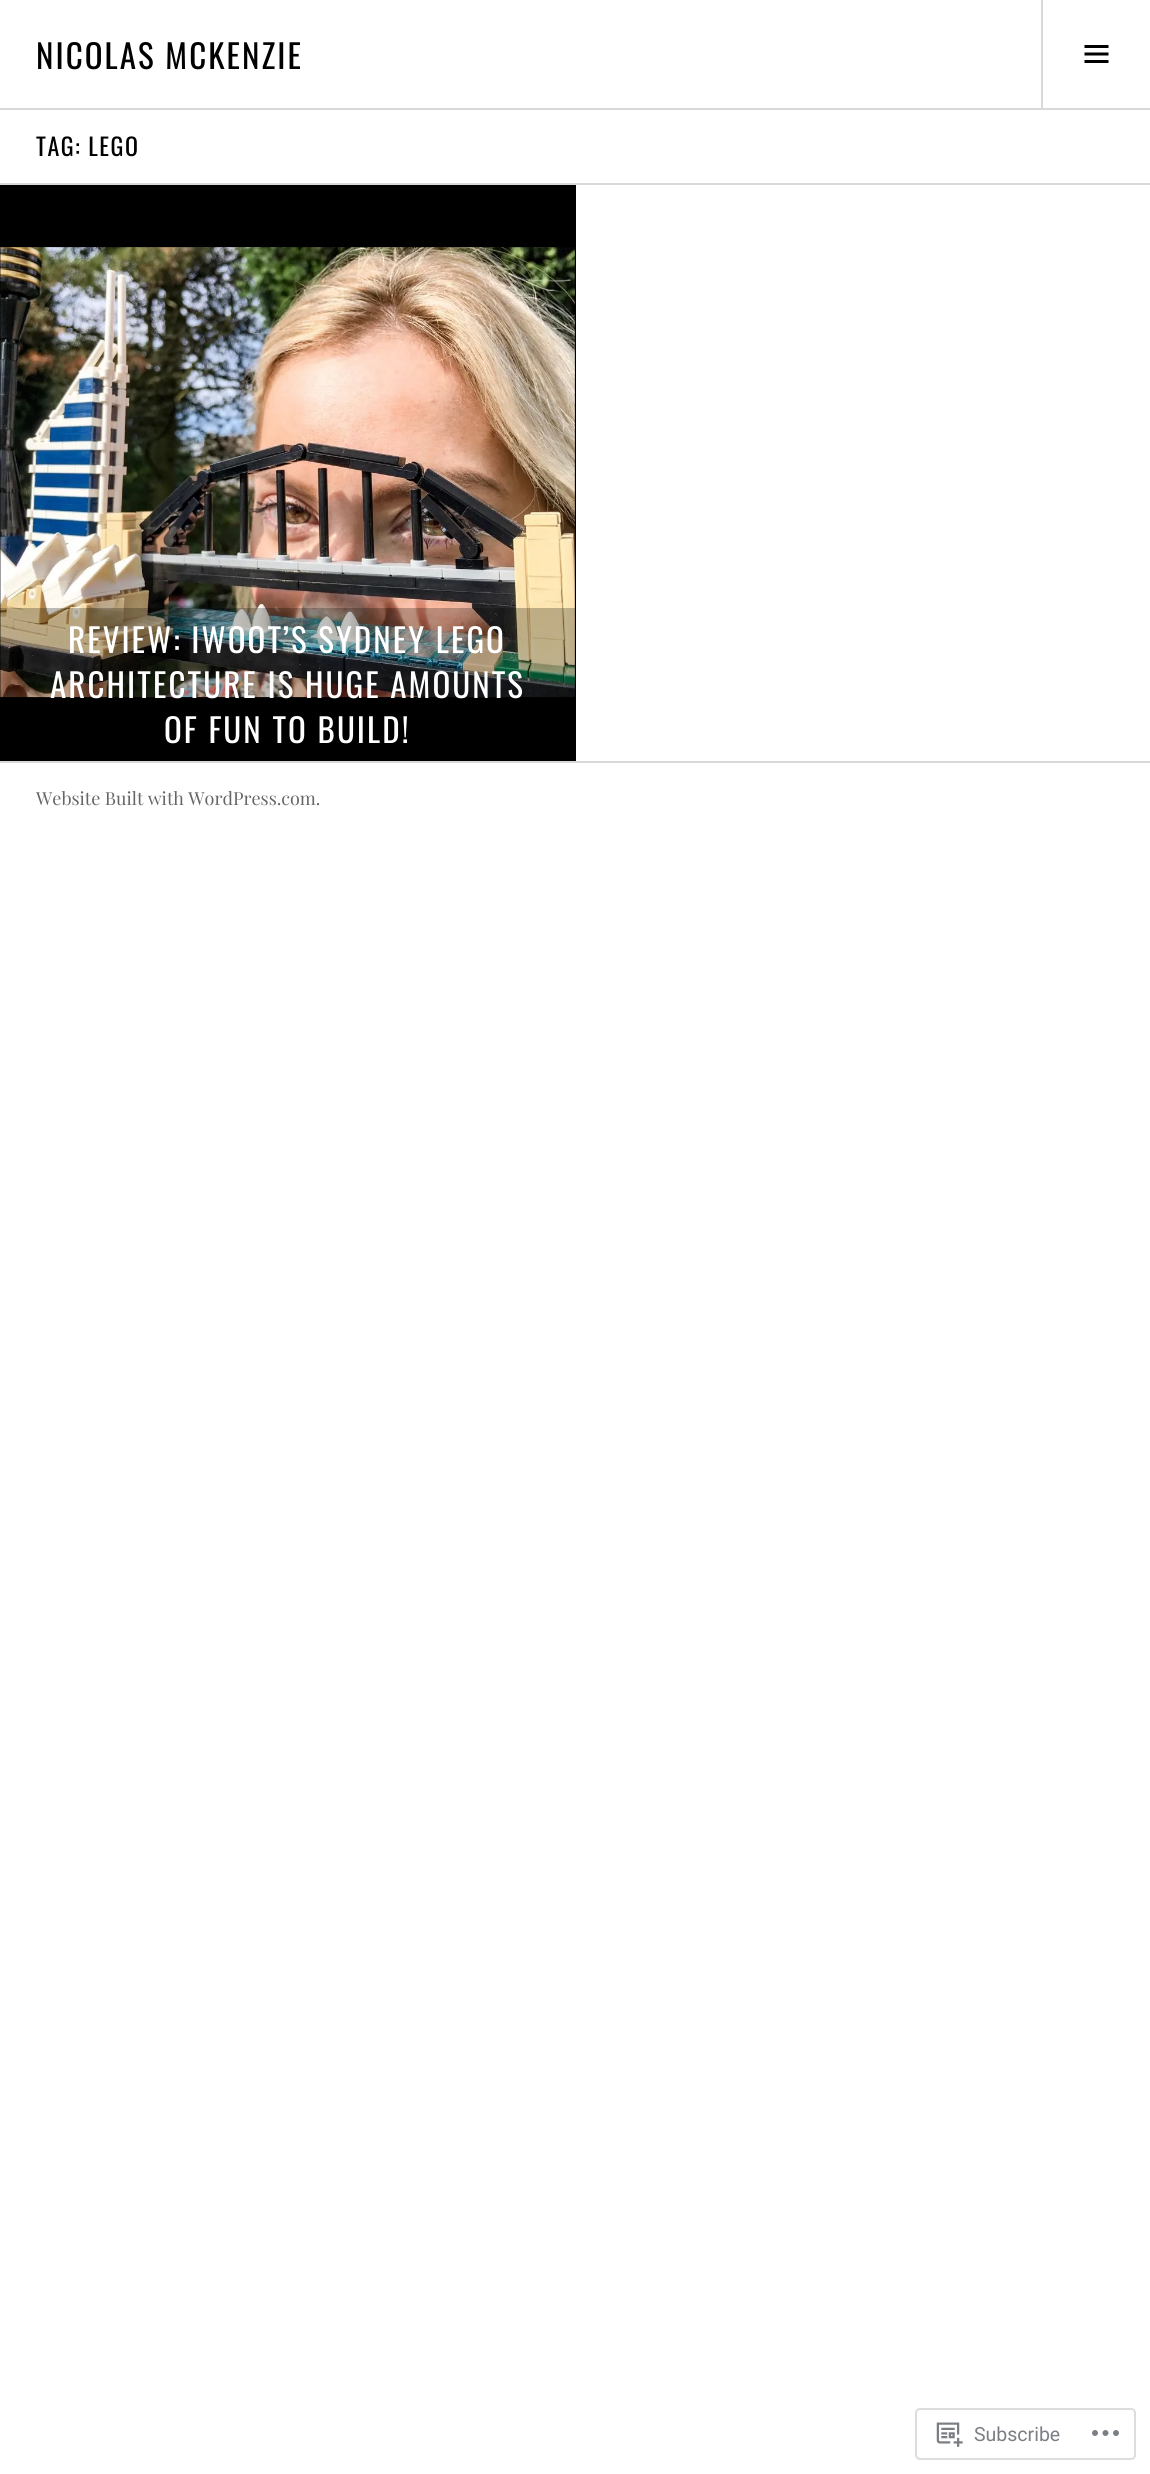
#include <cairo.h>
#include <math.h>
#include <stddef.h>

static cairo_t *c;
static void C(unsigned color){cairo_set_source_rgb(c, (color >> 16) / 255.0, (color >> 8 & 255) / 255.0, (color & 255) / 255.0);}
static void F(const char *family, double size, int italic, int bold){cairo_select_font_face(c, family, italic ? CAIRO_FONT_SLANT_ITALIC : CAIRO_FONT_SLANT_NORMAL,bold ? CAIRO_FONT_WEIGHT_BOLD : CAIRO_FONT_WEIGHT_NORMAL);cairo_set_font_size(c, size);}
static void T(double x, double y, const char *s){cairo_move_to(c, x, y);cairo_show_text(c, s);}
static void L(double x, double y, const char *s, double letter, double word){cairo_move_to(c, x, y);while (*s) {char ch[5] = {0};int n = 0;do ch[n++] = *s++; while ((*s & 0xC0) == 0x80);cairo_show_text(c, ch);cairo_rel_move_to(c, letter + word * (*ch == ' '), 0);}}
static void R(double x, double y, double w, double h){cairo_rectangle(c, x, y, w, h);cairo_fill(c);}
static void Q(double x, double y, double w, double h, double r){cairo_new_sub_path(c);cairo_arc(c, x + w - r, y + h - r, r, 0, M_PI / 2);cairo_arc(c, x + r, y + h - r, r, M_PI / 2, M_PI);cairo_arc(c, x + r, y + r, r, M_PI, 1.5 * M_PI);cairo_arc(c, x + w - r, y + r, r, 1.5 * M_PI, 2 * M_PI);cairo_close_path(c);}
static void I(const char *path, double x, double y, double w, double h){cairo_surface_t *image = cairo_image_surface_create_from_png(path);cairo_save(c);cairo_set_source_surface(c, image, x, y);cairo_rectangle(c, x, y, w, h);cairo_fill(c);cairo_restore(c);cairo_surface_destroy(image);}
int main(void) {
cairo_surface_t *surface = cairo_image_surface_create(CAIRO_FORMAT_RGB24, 1150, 2474);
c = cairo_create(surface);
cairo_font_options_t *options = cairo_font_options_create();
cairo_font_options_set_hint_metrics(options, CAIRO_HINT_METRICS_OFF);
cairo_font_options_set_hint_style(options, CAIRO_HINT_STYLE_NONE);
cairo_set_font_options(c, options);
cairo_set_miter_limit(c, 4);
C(0xffffff);
cairo_paint(c);
C(0xd9d9d9);
R(0,108,1150,2);
F("Oswald",33,0,0);
C(0x000000);
L(36,69,"NICOLAS MCKENZIE",2.05,0);
C(0xd9d9d9);
R(1041,0,2,108);
I("1.png",1084,45,25,18);
R(0,183,1150,2);
F("Oswald",24,0,0);
C(0x000000);
L(36,156,"TAG: LEGO",1.5,0);
R(0,185,576,576);
I("2.png",0,247,575,451);
cairo_set_source_rgba(c,0,0,0,0.25);
R(0,608,575,90);
F("Oswald",33,0,0);
C(0xffffff);
L(68,653,"REVIEW: IWOOT’S SYDNEY LEGO",2.05,0);
L(50,698,"ARCHITECTURE IS HUGE AMOUNTS",2.05,0);
L(164,743,"OF FUN TO BUILD!",2.05,0);
C(0xd9d9d9);
R(0,761,1150,2);
F("Playfair Display",18,0,0);
C(0x666666);
T(36,805,"Website Built with WordPress.com.");
Q(916,2409,219,50,4);
C(0xdddddf);
cairo_stroke(c);
I("3.png",936,2422,27,25);
F("Roboto",19.5,0,0);
C(0x7b7f85);
T(974,2441,"Subscribe");
I("4.png",1092,2430,27,6);
cairo_surface_write_to_png(surface, "o.png");
cairo_font_options_destroy(options);
cairo_destroy(c);
cairo_surface_destroy(surface);
return 0;
}
